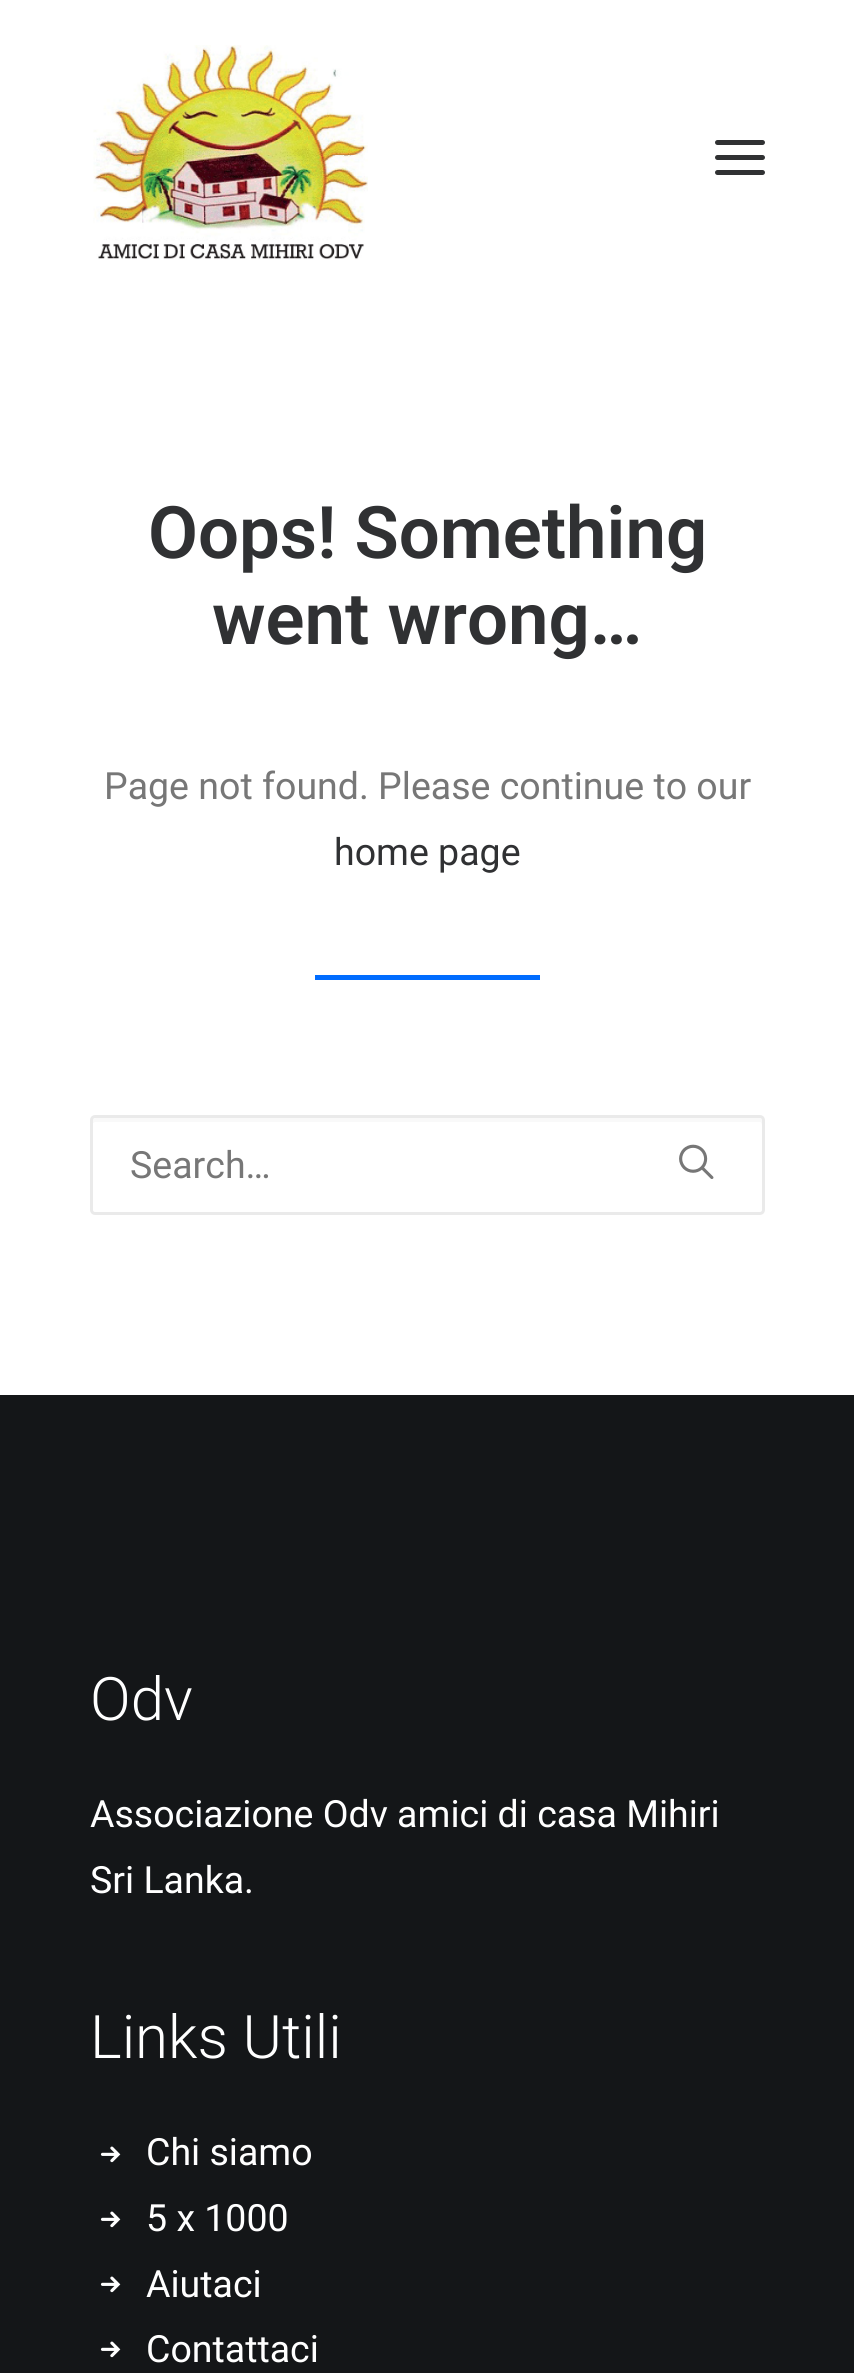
#include <cairo.h>
#include <math.h>
#include <stddef.h>

static cairo_t *c;
static void C(unsigned color){cairo_set_source_rgb(c, (color >> 16) / 255.0, (color >> 8 & 255) / 255.0, (color & 255) / 255.0);}
static void F(const char *family, double size, int italic, int bold){cairo_select_font_face(c, family, italic ? CAIRO_FONT_SLANT_ITALIC : CAIRO_FONT_SLANT_NORMAL,bold ? CAIRO_FONT_WEIGHT_BOLD : CAIRO_FONT_WEIGHT_NORMAL);cairo_set_font_size(c, size);}
static void T(double x, double y, const char *s){cairo_move_to(c, x, y);cairo_show_text(c, s);}
static void R(double x, double y, double w, double h){cairo_rectangle(c, x, y, w, h);cairo_fill(c);}
static void Q(double x, double y, double w, double h, double r){cairo_new_sub_path(c);cairo_arc(c, x + w - r, y + h - r, r, 0, M_PI / 2);cairo_arc(c, x + r, y + h - r, r, M_PI / 2, M_PI);cairo_arc(c, x + r, y + r, r, M_PI, 1.5 * M_PI);cairo_arc(c, x + w - r, y + r, r, 1.5 * M_PI, 2 * M_PI);cairo_close_path(c);}
static void I(const char *path, double x, double y, double w, double h){cairo_surface_t *image = cairo_image_surface_create_from_png(path);cairo_save(c);cairo_set_source_surface(c, image, x, y);cairo_rectangle(c, x, y, w, h);cairo_fill(c);cairo_restore(c);cairo_surface_destroy(image);}
int main(void) {
cairo_surface_t *surface = cairo_image_surface_create(CAIRO_FORMAT_RGB24, 854, 2373);
c = cairo_create(surface);
cairo_font_options_t *options = cairo_font_options_create();
cairo_font_options_set_hint_metrics(options, CAIRO_HINT_METRICS_OFF);
cairo_font_options_set_hint_style(options, CAIRO_HINT_STYLE_NONE);
cairo_set_font_options(c, options);
cairo_set_miter_limit(c, 4);
C(0xffffff);
cairo_paint(c);
I("1.png",93,45,275,215);
C(0x303133);
Q(715,155,50,5,2.5);
cairo_fill(c);
Q(715,140,50,5,2.5);
cairo_fill(c);
Q(715,170,50,5,2.5);
cairo_fill(c);
F("Roboto SemiBold",72.5,0,0);
T(148,558,"Oops! Something");
T(212,644,"went wrong…");
F("Roboto",37.5,0,0);
C(0x777777);
T(104,799,"Page not found. Please continue to our");
C(0x303133);
T(334,865,"home page");
C(0x006cff);
R(315,975,225,5);
C(0xf9f9f9);
cairo_new_path(c);
cairo_move_to(c,95,1122);
cairo_line_to(c,760,1122);
cairo_curve_to(c,761,1122,762,1124,762,1125);
cairo_line_to(c,762,1213);
cairo_line_to(c,763,1211);
cairo_line_to(c,763,1136);
cairo_curve_to(c,763,1131,765,1118,760,1118);
cairo_line_to(c,96,1118);
cairo_line_to(c,93,1119);
cairo_line_to(c,93,1123);
cairo_close_path(c);
cairo_fill(c);
Q(91.5,1116.5,672,97,3.5);
C(0xeaeaea);
cairo_set_line_width(c,3);
cairo_stroke(c);
C(0x777777);
T(130,1178,"Search…");
I("2.png",679,1144,35,35);
C(0x141618);
R(0,1395,854,978);
F("Roboto Light",60,0,0);
C(0xffffff);
T(90,1720,"Odv");
F("Roboto",37.5,0,0);
T(90,1827,"Associazione Odv amici di casa Mihiri");
T(90,1893,"Sri Lanka.");
F("Roboto Light",60,0,0);
T(90,2058,"Links Utili");
I("3.png",100,2146,21,17);
F("Roboto",37.5,0,0);
T(146,2165,"Chi siamo");
I("3.png",100,2211,21,17);
T(146,2231,"5 x 1000");
I("3.png",100,2276,21,17);
T(146,2297,"Aiutaci");
I("3.png",100,2341,21,17);
T(146,2362,"Contattaci");
cairo_surface_write_to_png(surface, "o.png");
cairo_font_options_destroy(options);
cairo_destroy(c);
cairo_surface_destroy(surface);
return 0;
}
